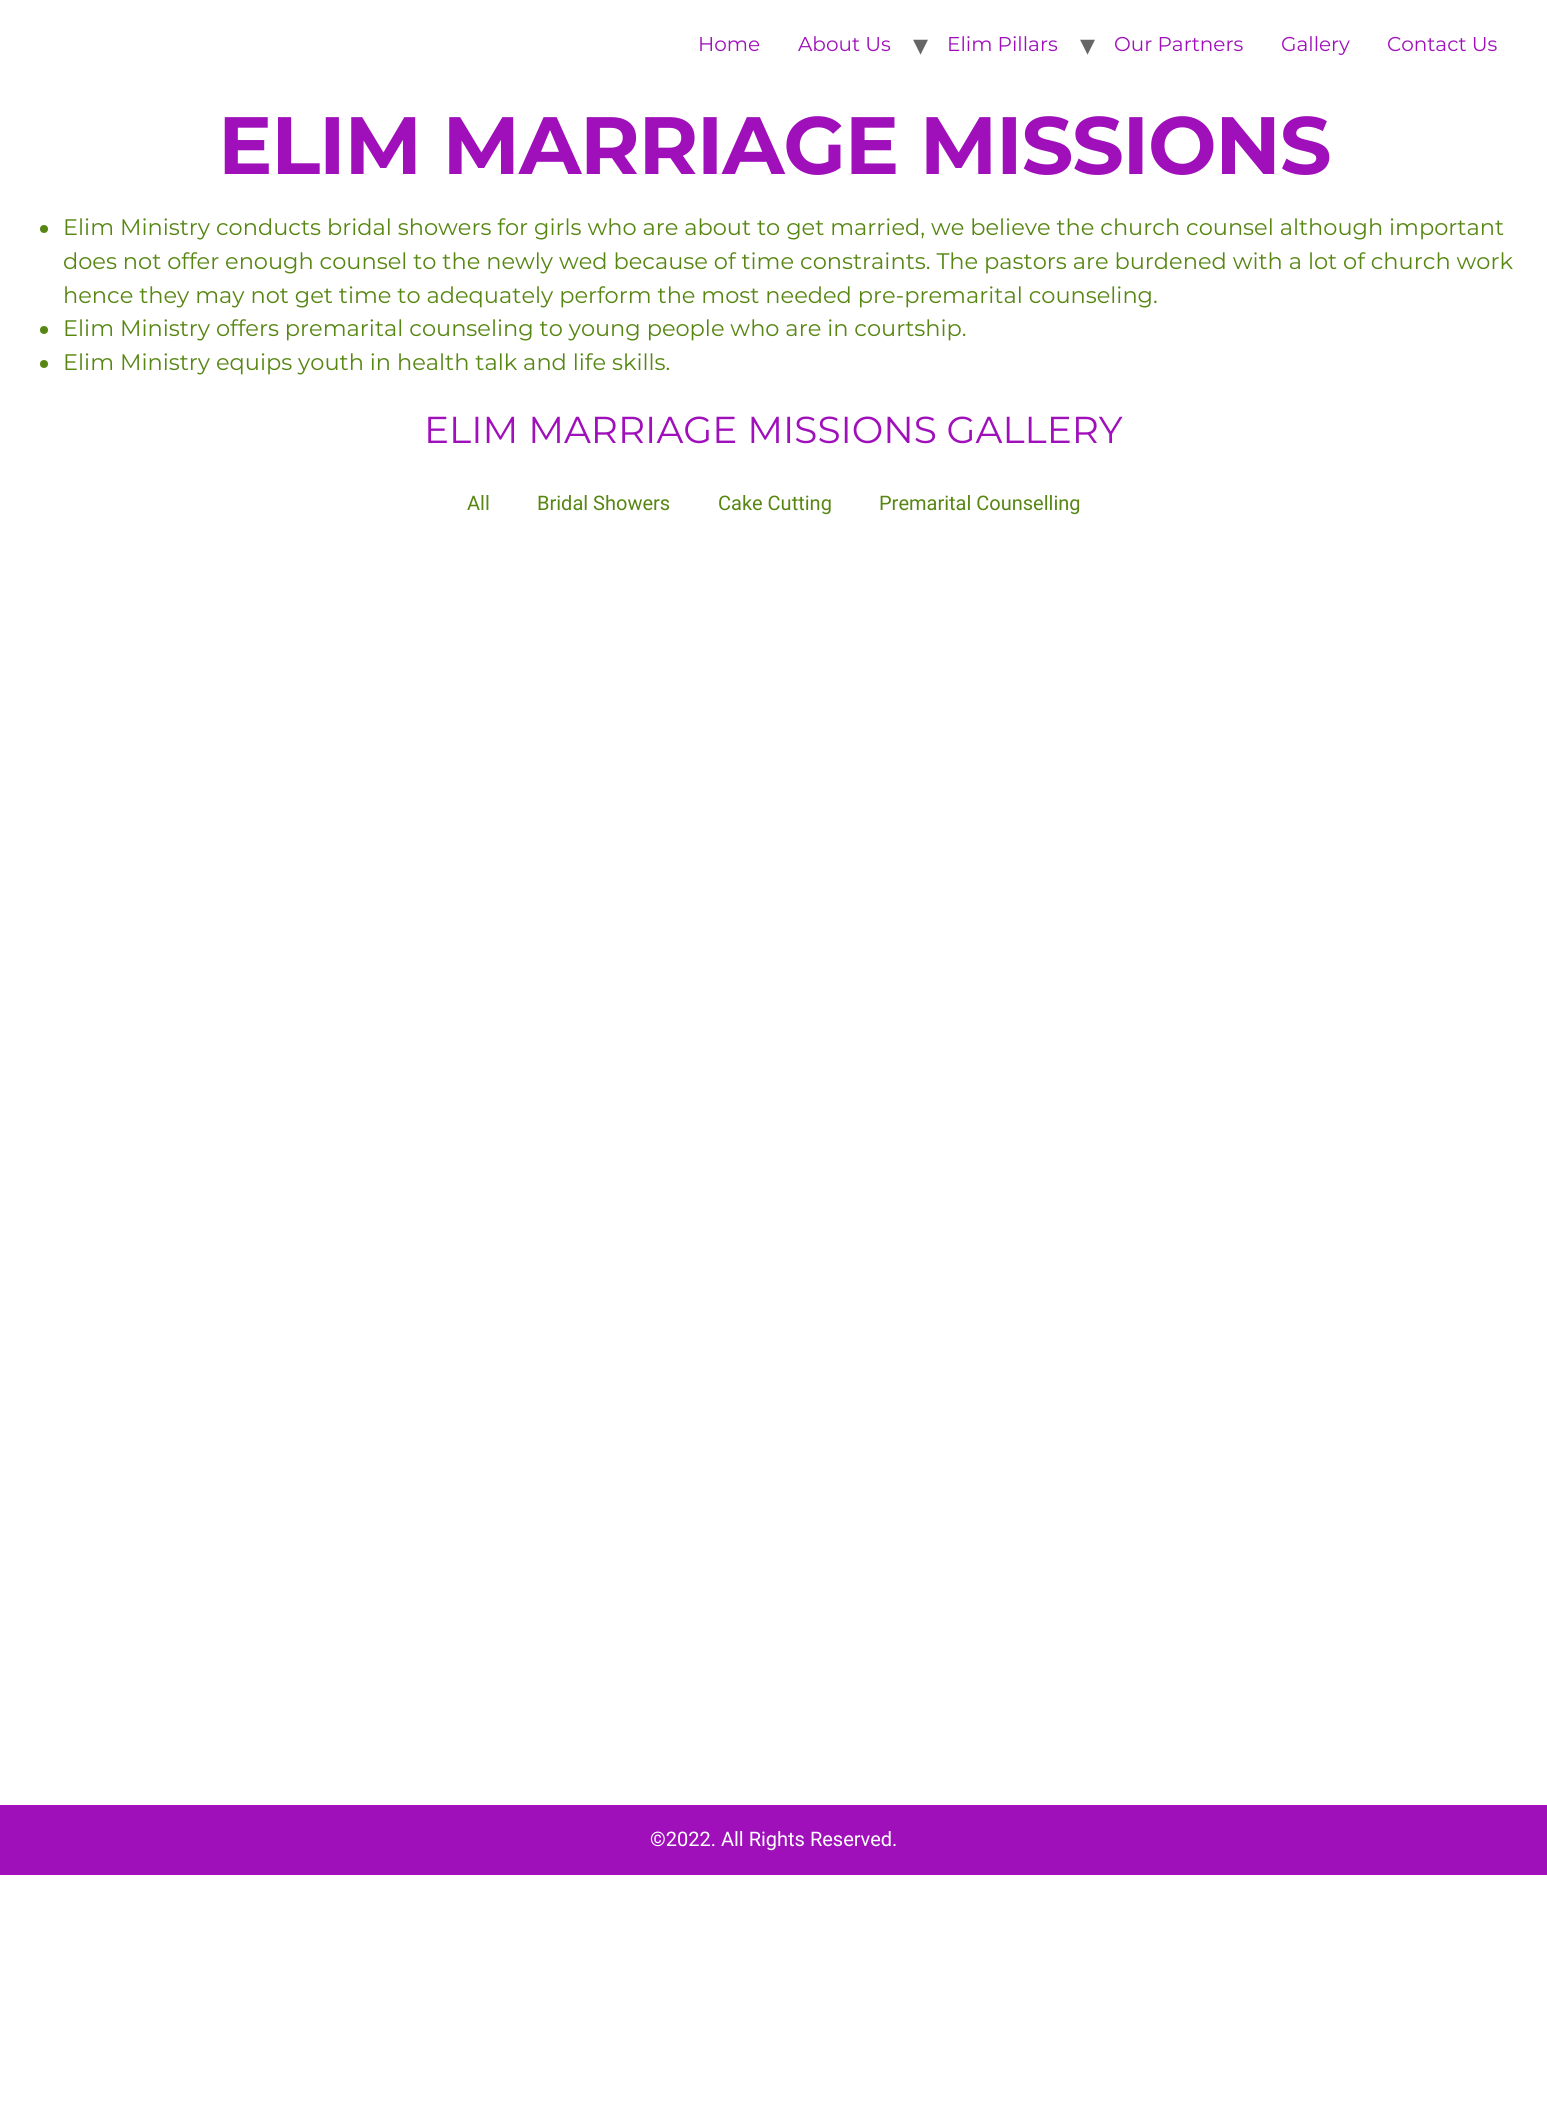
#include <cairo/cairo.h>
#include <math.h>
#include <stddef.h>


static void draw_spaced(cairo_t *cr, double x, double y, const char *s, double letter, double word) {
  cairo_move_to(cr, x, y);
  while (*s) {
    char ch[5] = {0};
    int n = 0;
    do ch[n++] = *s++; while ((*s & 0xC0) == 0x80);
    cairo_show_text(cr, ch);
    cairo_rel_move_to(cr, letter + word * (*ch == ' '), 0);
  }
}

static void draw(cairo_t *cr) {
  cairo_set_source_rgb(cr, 1, 1, 1);
  cairo_paint(cr);
  cairo_set_source_rgb(cr, 87 / 255.0, 134 / 255.0, 19 / 255.0);
  cairo_arc(cr, 44, 229, 4, 0, 2 * M_PI);
  cairo_fill(cr);
  cairo_arc(cr, 44, 330, 4, 0, 2 * M_PI);
  cairo_fill(cr);
  cairo_arc(cr, 44, 364, 4, 0, 2 * M_PI);
  cairo_fill(cr);
  cairo_set_source_rgb(cr, 159 / 255.0, 16 / 255.0, 186 / 255.0);
  cairo_rectangle(cr, 0, 1805, 1547, 70);
  cairo_fill(cr);
  cairo_select_font_face(cr, "Montserrat", CAIRO_FONT_SLANT_NORMAL, CAIRO_FONT_WEIGHT_NORMAL);
  cairo_set_font_size(cr, 20);
  cairo_move_to(cr, 698, 51);
  cairo_show_text(cr, "Home");
  cairo_move_to(cr, 798, 51);
  cairo_show_text(cr, "About Us");
  cairo_select_font_face(cr, "DejaVu Sans", CAIRO_FONT_SLANT_NORMAL, CAIRO_FONT_WEIGHT_NORMAL);
  cairo_set_font_size(cr, 30);
  cairo_set_source_rgb(cr, 102 / 255.0, 102 / 255.0, 102 / 255.0);
  cairo_move_to(cr, 913, 55);
  cairo_show_text(cr, "▾");
  cairo_select_font_face(cr, "Montserrat", CAIRO_FONT_SLANT_NORMAL, CAIRO_FONT_WEIGHT_NORMAL);
  cairo_set_font_size(cr, 20);
  cairo_set_source_rgb(cr, 159 / 255.0, 16 / 255.0, 186 / 255.0);
  cairo_move_to(cr, 947, 51);
  cairo_show_text(cr, "Elim Pillars");
  cairo_select_font_face(cr, "DejaVu Sans", CAIRO_FONT_SLANT_NORMAL, CAIRO_FONT_WEIGHT_NORMAL);
  cairo_set_font_size(cr, 30);
  cairo_set_source_rgb(cr, 102 / 255.0, 102 / 255.0, 102 / 255.0);
  cairo_move_to(cr, 1080, 55);
  cairo_show_text(cr, "▾");
  cairo_select_font_face(cr, "Montserrat", CAIRO_FONT_SLANT_NORMAL, CAIRO_FONT_WEIGHT_NORMAL);
  cairo_set_font_size(cr, 20);
  cairo_set_source_rgb(cr, 159 / 255.0, 16 / 255.0, 186 / 255.0);
  cairo_move_to(cr, 1114, 51);
  cairo_show_text(cr, "Our Partners");
  cairo_move_to(cr, 1281, 51);
  cairo_show_text(cr, "Gallery");
  cairo_move_to(cr, 1387, 51);
  cairo_show_text(cr, "Contact Us");
  cairo_select_font_face(cr, "Montserrat", CAIRO_FONT_SLANT_NORMAL, CAIRO_FONT_WEIGHT_BOLD);
  cairo_set_font_size(cr, 81.25);
  draw_spaced(cr, 218, 174, "ELIM MARRIAGE MISSIONS", -1.25, 0);
  cairo_select_font_face(cr, "Montserrat", CAIRO_FONT_SLANT_NORMAL, CAIRO_FONT_WEIGHT_NORMAL);
  cairo_set_font_size(cr, 22.5);
  cairo_set_source_rgb(cr, 87 / 255.0, 134 / 255.0, 19 / 255.0);
  cairo_move_to(cr, 63, 235);
  cairo_show_text(cr, "Elim Ministry conducts bridal showers for girls who are about to get married, we believe the church counsel although important");
  cairo_move_to(cr, 63, 269);
  cairo_show_text(cr, "does not offer enough counsel to the newly wed because of time constraints. The pastors are burdened with a lot of church work");
  cairo_move_to(cr, 63, 303);
  cairo_show_text(cr, "hence they may not get time to adequately perform the most needed pre-premarital counseling.");
  cairo_move_to(cr, 63, 336);
  cairo_show_text(cr, "Elim Ministry offers premarital counseling to young people who are in courtship.");
  cairo_move_to(cr, 63, 370);
  cairo_show_text(cr, "Elim Ministry equips youth in health talk and life skills.");
  cairo_set_font_size(cr, 37.5);
  cairo_set_source_rgb(cr, 159 / 255.0, 16 / 255.0, 186 / 255.0);
  cairo_move_to(cr, 424, 443);
  cairo_show_text(cr, "ELIM MARRIAGE MISSIONS GALLERY");
  cairo_select_font_face(cr, "Roboto", CAIRO_FONT_SLANT_NORMAL, CAIRO_FONT_WEIGHT_NORMAL);
  cairo_set_font_size(cr, 20);
  cairo_set_source_rgb(cr, 87 / 255.0, 134 / 255.0, 19 / 255.0);
  cairo_move_to(cr, 467, 510);
  cairo_show_text(cr, "All");
  cairo_move_to(cr, 537, 510);
  cairo_show_text(cr, "Bridal Showers");
  cairo_move_to(cr, 718, 510);
  cairo_show_text(cr, "Cake Cutting");
  cairo_move_to(cr, 879, 510);
  cairo_show_text(cr, "Premarital Counselling");
  cairo_set_source_rgb(cr, 1, 1, 1);
  cairo_move_to(cr, 650, 1846);
  cairo_show_text(cr, "©2022. All Rights Reserved.");
}

int main(void) {
  cairo_surface_t *surface = cairo_image_surface_create(CAIRO_FORMAT_RGB24, 1547, 2114);
  cairo_t *cr = cairo_create(surface);
  cairo_font_options_t *options = cairo_font_options_create();
  cairo_font_options_set_hint_metrics(options, CAIRO_HINT_METRICS_OFF);
  cairo_font_options_set_hint_style(options, CAIRO_HINT_STYLE_NONE);
  cairo_set_font_options(cr, options);
  cairo_set_miter_limit(cr, 4);
  draw(cr);
  cairo_surface_write_to_png(surface, "out.png");
  cairo_font_options_destroy(options);
  cairo_destroy(cr);
  cairo_surface_destroy(surface);
  return 0;
}
